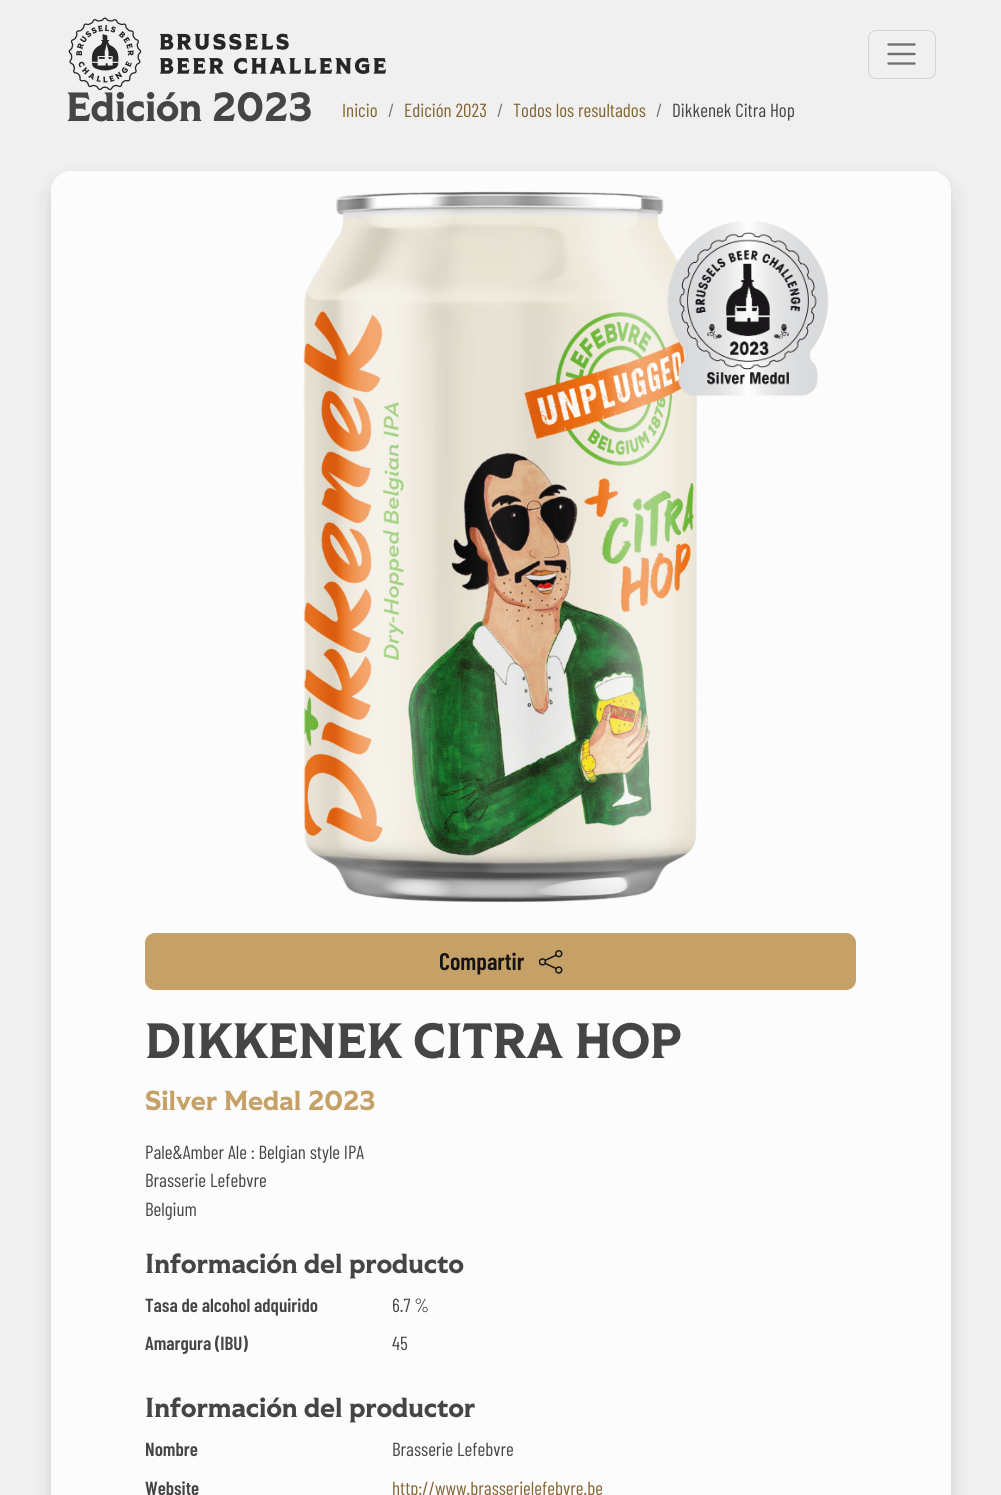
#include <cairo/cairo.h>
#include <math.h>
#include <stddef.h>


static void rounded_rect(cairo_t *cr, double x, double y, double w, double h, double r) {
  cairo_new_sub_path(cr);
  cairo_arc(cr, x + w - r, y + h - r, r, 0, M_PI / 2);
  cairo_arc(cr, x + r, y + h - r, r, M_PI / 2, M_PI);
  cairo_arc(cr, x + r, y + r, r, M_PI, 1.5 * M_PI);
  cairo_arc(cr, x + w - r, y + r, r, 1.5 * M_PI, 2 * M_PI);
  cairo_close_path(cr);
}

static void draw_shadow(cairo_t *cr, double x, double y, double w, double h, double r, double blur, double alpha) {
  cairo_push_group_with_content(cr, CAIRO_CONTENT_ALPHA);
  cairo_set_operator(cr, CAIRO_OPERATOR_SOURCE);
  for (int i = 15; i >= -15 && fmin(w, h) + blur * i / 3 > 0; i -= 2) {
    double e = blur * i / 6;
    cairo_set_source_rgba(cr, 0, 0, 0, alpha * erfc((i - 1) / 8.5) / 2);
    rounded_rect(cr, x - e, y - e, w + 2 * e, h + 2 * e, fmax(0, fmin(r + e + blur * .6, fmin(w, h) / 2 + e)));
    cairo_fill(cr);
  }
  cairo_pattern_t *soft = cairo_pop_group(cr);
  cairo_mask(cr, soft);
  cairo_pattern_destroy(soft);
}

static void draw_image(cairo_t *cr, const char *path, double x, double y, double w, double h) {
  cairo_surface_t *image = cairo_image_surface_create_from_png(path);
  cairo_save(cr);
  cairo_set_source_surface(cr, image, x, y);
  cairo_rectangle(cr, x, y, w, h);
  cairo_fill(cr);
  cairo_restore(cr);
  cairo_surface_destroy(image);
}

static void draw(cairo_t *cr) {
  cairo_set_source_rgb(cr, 240 / 255.0, 240 / 255.0, 240 / 255.0);
  cairo_paint(cr);
  draw_image(cr, "images/1.png", 68, 17, 318, 74);
  rounded_rect(cr, 868.5, 30.5, 67, 48, 7.5);
  cairo_set_source_rgb(cr, 210 / 255.0, 210 / 255.0, 210 / 255.0);
  cairo_set_line_width(cr, 1);
  cairo_stroke(cr);
  cairo_new_path(cr);
  cairo_move_to(cr, 888.5, 44.5);
  cairo_line_to(cr, 914.5, 44.5);
  cairo_move_to(cr, 888.5, 54);
  cairo_line_to(cr, 914.5, 54);
  cairo_move_to(cr, 888.5, 63.5);
  cairo_line_to(cr, 914.5, 63.5);
  cairo_set_source_rgb(cr, 112 / 255.0, 112 / 255.0, 112 / 255.0);
  cairo_set_line_width(cr, 2.4);
  cairo_set_line_cap(cr, CAIRO_LINE_CAP_ROUND);
  cairo_stroke(cr);
  cairo_set_source_rgb(cr, 20 / 255.0, 20 / 255.0, 20 / 255.0);
  draw_shadow(cr, 51, 181, 900, 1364, 20, 10, 0.15);
  cairo_set_source_rgb(cr, 252 / 255.0, 252 / 255.0, 252 / 255.0);
  rounded_rect(cr, 51, 171, 900, 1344, 20);
  cairo_fill(cr);
  draw_image(cr, "images/2.png", 303, 191, 394, 712);
  draw_image(cr, "images/3.png", 667, 221, 162, 175);
  cairo_set_source_rgb(cr, 197 / 255.0, 161 / 255.0, 103 / 255.0);
  rounded_rect(cr, 145.5, 933.5, 710, 56, 9.5);
  cairo_fill_preserve(cr);
  cairo_set_line_width(cr, 1);
  cairo_set_line_cap(cr, CAIRO_LINE_CAP_BUTT);
  cairo_stroke(cr);
  draw_image(cr, "images/4.png", 539, 950, 24, 24);
  cairo_select_font_face(cr, "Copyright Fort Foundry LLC", CAIRO_FONT_SLANT_NORMAL, CAIRO_FONT_WEIGHT_BOLD);
  cairo_set_font_size(cr, 40.75);
  cairo_set_source_rgb(cr, 69 / 255.0, 69 / 255.0, 69 / 255.0);
  cairo_move_to(cr, 66, 121);
  cairo_show_text(cr, "Edición 2023");
  cairo_select_font_face(cr, "Barlow Condensed", CAIRO_FONT_SLANT_NORMAL, CAIRO_FONT_WEIGHT_NORMAL);
  cairo_set_font_size(cr, 19);
  cairo_set_source_rgb(cr, 132 / 255.0, 100 / 255.0, 50 / 255.0);
  cairo_move_to(cr, 342, 117);
  cairo_show_text(cr, "Inicio");
  cairo_set_source_rgb(cr, 122 / 255.0, 122 / 255.0, 122 / 255.0);
  cairo_move_to(cr, 388, 117);
  cairo_show_text(cr, "/");
  cairo_set_source_rgb(cr, 132 / 255.0, 100 / 255.0, 50 / 255.0);
  cairo_move_to(cr, 404, 117);
  cairo_show_text(cr, "Edición 2023");
  cairo_set_source_rgb(cr, 122 / 255.0, 122 / 255.0, 122 / 255.0);
  cairo_move_to(cr, 497, 117);
  cairo_show_text(cr, "/");
  cairo_set_source_rgb(cr, 132 / 255.0, 100 / 255.0, 50 / 255.0);
  cairo_move_to(cr, 513, 117);
  cairo_show_text(cr, "Todos los resultados");
  cairo_set_source_rgb(cr, 122 / 255.0, 122 / 255.0, 122 / 255.0);
  cairo_move_to(cr, 656, 117);
  cairo_show_text(cr, "/");
  cairo_set_source_rgb(cr, 69 / 255.0, 69 / 255.0, 69 / 255.0);
  cairo_move_to(cr, 672, 117);
  cairo_show_text(cr, "Dikkenek Citra Hop");
  cairo_select_font_face(cr, "Barlow Condensed SemiBold", CAIRO_FONT_SLANT_NORMAL, CAIRO_FONT_WEIGHT_NORMAL);
  cairo_set_font_size(cr, 24);
  cairo_set_source_rgb(cr, 20 / 255.0, 20 / 255.0, 20 / 255.0);
  cairo_move_to(cr, 439, 970);
  cairo_show_text(cr, "Compartir");
  cairo_select_font_face(cr, "Copyright Fort Foundry LLC", CAIRO_FONT_SLANT_NORMAL, CAIRO_FONT_WEIGHT_BOLD);
  cairo_set_font_size(cr, 49.5);
  cairo_set_source_rgb(cr, 69 / 255.0, 69 / 255.0, 69 / 255.0);
  cairo_move_to(cr, 145, 1058);
  cairo_show_text(cr, "DIKKENEK CITRA HOP");
  cairo_set_font_size(cr, 27.5);
  cairo_set_source_rgb(cr, 197 / 255.0, 161 / 255.0, 103 / 255.0);
  cairo_move_to(cr, 145, 1110);
  cairo_show_text(cr, "Silver Medal 2023");
  cairo_select_font_face(cr, "Barlow Condensed", CAIRO_FONT_SLANT_NORMAL, CAIRO_FONT_WEIGHT_NORMAL);
  cairo_set_font_size(cr, 19);
  cairo_set_source_rgb(cr, 69 / 255.0, 69 / 255.0, 69 / 255.0);
  cairo_move_to(cr, 145, 1159);
  cairo_show_text(cr, "Pale&Amber Ale : Belgian style IPA");
  cairo_move_to(cr, 145, 1187);
  cairo_show_text(cr, "Brasserie Lefebvre");
  cairo_move_to(cr, 145, 1216);
  cairo_show_text(cr, "Belgium");
  cairo_select_font_face(cr, "Copyright Fort Foundry LLC", CAIRO_FONT_SLANT_NORMAL, CAIRO_FONT_WEIGHT_BOLD);
  cairo_set_font_size(cr, 27.5);
  cairo_move_to(cr, 145, 1273);
  cairo_show_text(cr, "Información del producto");
  cairo_select_font_face(cr, "Barlow Condensed SemiBold", CAIRO_FONT_SLANT_NORMAL, CAIRO_FONT_WEIGHT_NORMAL);
  cairo_set_font_size(cr, 19);
  cairo_move_to(cr, 145, 1312);
  cairo_show_text(cr, "Tasa de alcohol adquirido");
  cairo_select_font_face(cr, "Barlow Condensed", CAIRO_FONT_SLANT_NORMAL, CAIRO_FONT_WEIGHT_NORMAL);
  cairo_move_to(cr, 392, 1312);
  cairo_show_text(cr, "6.7 %");
  cairo_select_font_face(cr, "Barlow Condensed SemiBold", CAIRO_FONT_SLANT_NORMAL, CAIRO_FONT_WEIGHT_NORMAL);
  cairo_move_to(cr, 145, 1350);
  cairo_show_text(cr, "Amargura (IBU)");
  cairo_select_font_face(cr, "Barlow Condensed", CAIRO_FONT_SLANT_NORMAL, CAIRO_FONT_WEIGHT_NORMAL);
  cairo_move_to(cr, 392, 1350);
  cairo_show_text(cr, "45");
  cairo_select_font_face(cr, "Copyright Fort Foundry LLC", CAIRO_FONT_SLANT_NORMAL, CAIRO_FONT_WEIGHT_BOLD);
  cairo_set_font_size(cr, 27.5);
  cairo_move_to(cr, 145, 1417);
  cairo_show_text(cr, "Información del productor");
  cairo_select_font_face(cr, "Barlow Condensed SemiBold", CAIRO_FONT_SLANT_NORMAL, CAIRO_FONT_WEIGHT_NORMAL);
  cairo_set_font_size(cr, 19);
  cairo_move_to(cr, 145, 1456);
  cairo_show_text(cr, "Nombre");
  cairo_select_font_face(cr, "Barlow Condensed", CAIRO_FONT_SLANT_NORMAL, CAIRO_FONT_WEIGHT_NORMAL);
  cairo_move_to(cr, 392, 1456);
  cairo_show_text(cr, "Brasserie Lefebvre");
  cairo_select_font_face(cr, "Barlow Condensed SemiBold", CAIRO_FONT_SLANT_NORMAL, CAIRO_FONT_WEIGHT_NORMAL);
  cairo_move_to(cr, 145, 1495);
  cairo_show_text(cr, "Website");
  cairo_select_font_face(cr, "Barlow Condensed", CAIRO_FONT_SLANT_NORMAL, CAIRO_FONT_WEIGHT_NORMAL);
  cairo_set_source_rgb(cr, 132 / 255.0, 100 / 255.0, 50 / 255.0);
  cairo_move_to(cr, 392, 1495);
  cairo_show_text(cr, "http://www.brasserielefebvre.be");
}

int main(void) {
  cairo_surface_t *surface = cairo_image_surface_create(CAIRO_FORMAT_RGB24, 1001, 1495);
  cairo_t *cr = cairo_create(surface);
  cairo_font_options_t *options = cairo_font_options_create();
  cairo_font_options_set_hint_metrics(options, CAIRO_HINT_METRICS_OFF);
  cairo_font_options_set_hint_style(options, CAIRO_HINT_STYLE_NONE);
  cairo_set_font_options(cr, options);
  cairo_set_miter_limit(cr, 4);
  draw(cr);
  cairo_surface_write_to_png(surface, "out.png");
  cairo_font_options_destroy(options);
  cairo_destroy(cr);
  cairo_surface_destroy(surface);
  return 0;
}
